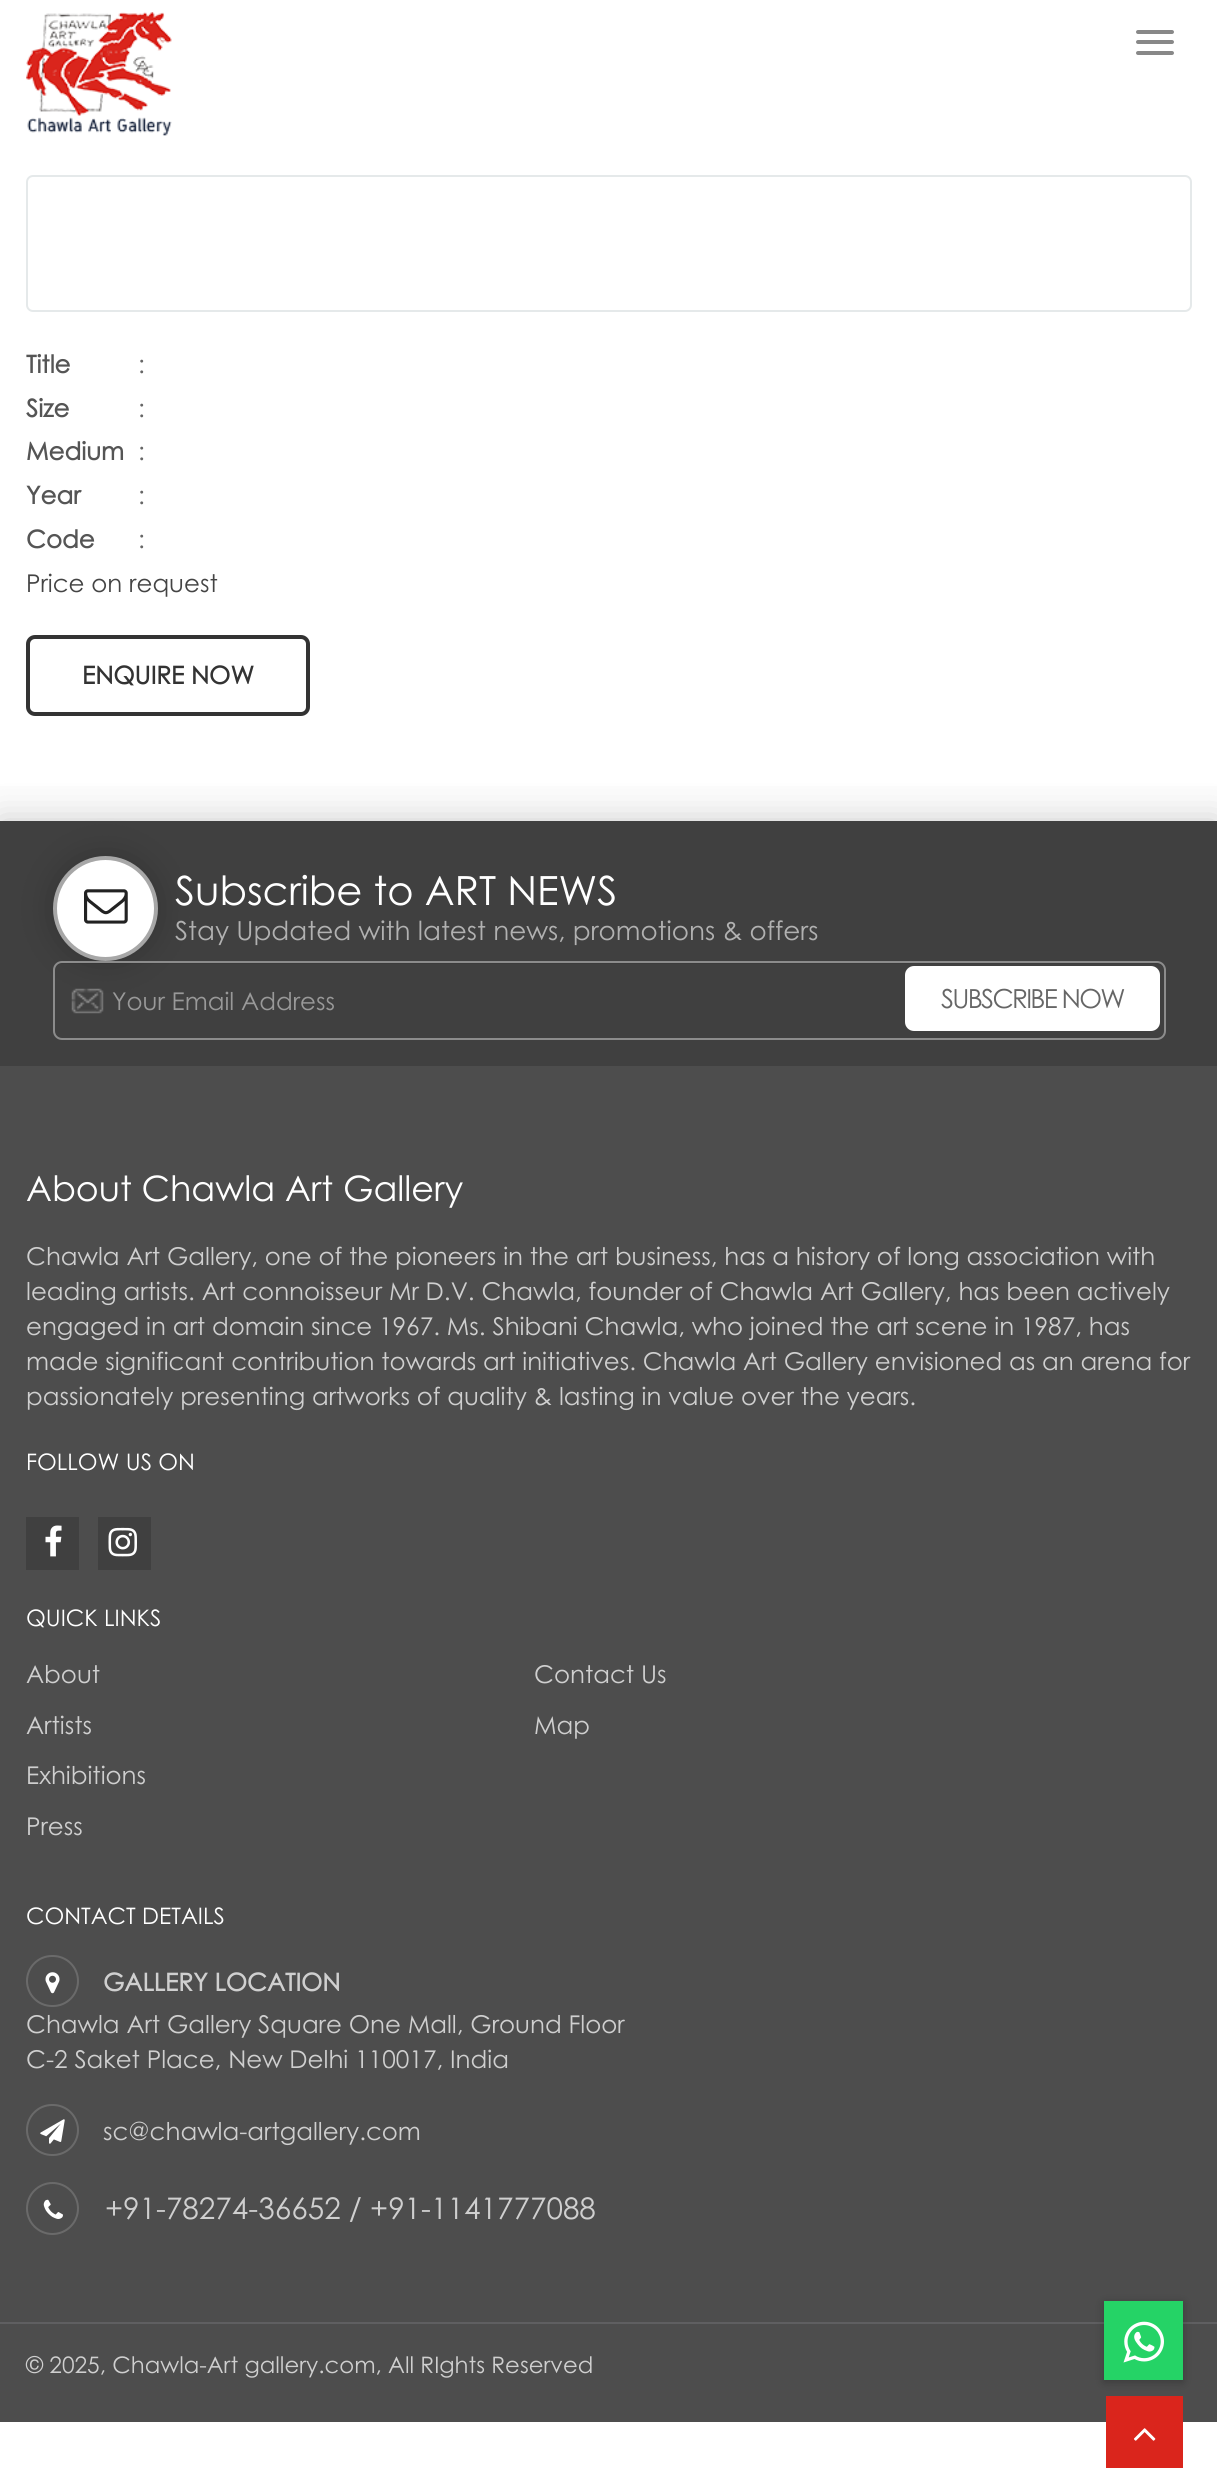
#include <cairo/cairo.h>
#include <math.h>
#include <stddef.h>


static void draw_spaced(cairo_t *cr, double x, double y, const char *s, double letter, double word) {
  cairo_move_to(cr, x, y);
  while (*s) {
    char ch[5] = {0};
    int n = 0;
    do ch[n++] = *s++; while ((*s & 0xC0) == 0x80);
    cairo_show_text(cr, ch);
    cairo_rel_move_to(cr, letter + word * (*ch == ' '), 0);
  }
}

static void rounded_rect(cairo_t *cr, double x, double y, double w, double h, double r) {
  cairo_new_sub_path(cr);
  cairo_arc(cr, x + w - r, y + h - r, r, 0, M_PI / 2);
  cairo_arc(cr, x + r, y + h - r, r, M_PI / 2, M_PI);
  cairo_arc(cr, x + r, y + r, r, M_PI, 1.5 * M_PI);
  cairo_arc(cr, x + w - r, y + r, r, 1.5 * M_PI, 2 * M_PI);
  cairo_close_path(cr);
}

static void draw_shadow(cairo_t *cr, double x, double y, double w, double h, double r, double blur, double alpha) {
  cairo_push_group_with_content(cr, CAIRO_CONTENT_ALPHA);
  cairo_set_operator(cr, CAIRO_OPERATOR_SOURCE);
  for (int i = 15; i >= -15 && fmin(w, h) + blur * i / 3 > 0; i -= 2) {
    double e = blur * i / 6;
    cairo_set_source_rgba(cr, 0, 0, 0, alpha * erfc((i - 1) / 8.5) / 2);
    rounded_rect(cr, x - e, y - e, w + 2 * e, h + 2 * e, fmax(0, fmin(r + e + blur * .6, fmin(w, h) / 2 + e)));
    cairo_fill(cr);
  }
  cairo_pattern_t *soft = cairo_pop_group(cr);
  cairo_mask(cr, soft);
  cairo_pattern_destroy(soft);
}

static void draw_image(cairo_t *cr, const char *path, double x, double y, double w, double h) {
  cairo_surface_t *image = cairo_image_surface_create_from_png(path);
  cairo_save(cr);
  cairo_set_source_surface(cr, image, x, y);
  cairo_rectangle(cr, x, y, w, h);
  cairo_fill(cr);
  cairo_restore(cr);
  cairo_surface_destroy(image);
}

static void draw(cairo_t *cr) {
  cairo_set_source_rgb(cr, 1, 1, 1);
  cairo_paint(cr);
  draw_image(cr, "images/1.png", 26, 12, 146, 124);
  cairo_set_source_rgb(cr, 136 / 255.0, 136 / 255.0, 136 / 255.0);
  rounded_rect(cr, 1136, 30, 38, 4, 2);
  cairo_fill(cr);
  rounded_rect(cr, 1136, 40, 38, 4, 2);
  cairo_fill(cr);
  rounded_rect(cr, 1136, 51, 38, 4, 2);
  cairo_fill(cr);
  rounded_rect(cr, 27, 176, 1164, 135, 6);
  cairo_set_source_rgb(cr, 229 / 255.0, 233 / 255.0, 234 / 255.0);
  cairo_stroke(cr);
  rounded_rect(cr, 28, 637, 280, 77, 7);
  cairo_set_source_rgb(cr, 51 / 255.0, 51 / 255.0, 51 / 255.0);
  cairo_set_line_width(cr, 4);
  cairo_stroke(cr);
  cairo_set_source_rgb(cr, 252 / 255.0, 252 / 255.0, 252 / 255.0);
  cairo_rectangle(cr, 0, 786, 1217, 35);
  cairo_fill(cr);
  cairo_set_source_rgb(cr, 0, 0, 0);
  draw_shadow(cr, 0, 821, 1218, 245, 0, 17.5, 0.2);
  cairo_set_source_rgb(cr, 64 / 255.0, 64 / 255.0, 64 / 255.0);
  cairo_rectangle(cr, 0, 821, 1217, 245);
  cairo_fill(cr);
  cairo_set_source_rgb(cr, 0, 0, 0);
  draw_shadow(cr, 53, 856, 105, 105, 52.5, 17.5, 0.2);
  cairo_set_source_rgb(cr, 1, 1, 1);
  cairo_arc(cr, 105.5, 908.5, 50.5, 0, 2 * M_PI);
  cairo_fill_preserve(cr);
  cairo_set_source_rgb(cr, 167 / 255.0, 167 / 255.0, 167 / 255.0);
  cairo_stroke(cr);
  draw_image(cr, "images/2.png", 84, 889, 44, 35);
  draw_image(cr, "images/3.png", 71, 988, 33, 26);
  cairo_set_source_rgba(cr, 0, 0, 0, 0.07);
  cairo_new_path(cr);
  cairo_move_to(cr, 61, 964);
  cairo_line_to(cr, 1157, 964);
  cairo_curve_to(cr, 1161, 964, 1164, 967, 1164, 971);
  cairo_line_to(cr, 1164, 970);
  cairo_curve_to(cr, 1164, 966, 1161, 963, 1157, 963);
  cairo_line_to(cr, 61, 963);
  cairo_curve_to(cr, 57, 963, 54, 966, 54, 970);
  cairo_line_to(cr, 54, 971);
  cairo_curve_to(cr, 54, 967, 57, 964, 61, 964);
  cairo_close_path(cr);
  cairo_fill(cr);
  rounded_rect(cr, 54, 962, 1111, 77, 8);
  cairo_set_source_rgb(cr, 140 / 255.0, 140 / 255.0, 140 / 255.0);
  cairo_set_line_width(cr, 2);
  cairo_stroke(cr);
  cairo_set_source_rgb(cr, 1, 1, 1);
  rounded_rect(cr, 905, 966, 255, 65, 9);
  cairo_fill(cr);
  cairo_set_source_rgb(cr, 77 / 255.0, 77 / 255.0, 77 / 255.0);
  cairo_rectangle(cr, 0, 1066, 1217, 1256);
  cairo_fill(cr);
  cairo_set_source_rgb(cr, 64 / 255.0, 64 / 255.0, 64 / 255.0);
  cairo_rectangle(cr, 26, 1517, 53, 53);
  cairo_fill(cr);
  draw_image(cr, "images/4.png", 45, 1525, 17, 32);
  cairo_rectangle(cr, 98, 1517, 53, 53);
  cairo_fill(cr);
  draw_image(cr, "images/5.png", 108, 1527, 29, 30);
  rounded_rect(cr, 27, 1956, 51, 50, 25);
  cairo_set_source_rgb(cr, 106 / 255.0, 106 / 255.0, 106 / 255.0);
  cairo_stroke(cr);
  draw_image(cr, "images/6.png", 45, 1972, 15, 22);
  rounded_rect(cr, 27, 2105, 51, 50, 25);
  cairo_stroke(cr);
  draw_image(cr, "images/7.png", 40, 2119, 25, 25);
  cairo_arc(cr, 52.5, 2208.5, 25.5, 0, 2 * M_PI);
  cairo_stroke(cr);
  draw_image(cr, "images/8.png", 43, 2199, 20, 20);
  cairo_set_source_rgb(cr, 77 / 255.0, 77 / 255.0, 77 / 255.0);
  cairo_rectangle(cr, 0, 2324, 1217, 98);
  cairo_fill(cr);
  cairo_set_source_rgb(cr, 95 / 255.0, 95 / 255.0, 97 / 255.0);
  cairo_rectangle(cr, 0, 2322, 1217, 2);
  cairo_fill(cr);
  cairo_set_source_rgb(cr, 218 / 255.0, 37 / 255.0, 28 / 255.0);
  cairo_rectangle(cr, 1106, 2396, 77, 72);
  cairo_fill(cr);
  cairo_set_source_rgb(cr, 0, 0, 0);
  draw_shadow(cr, 1104, 2303, 79, 79, 0, 4.5, 0.25);
  cairo_set_source_rgb(cr, 37 / 255.0, 211 / 255.0, 102 / 255.0);
  cairo_rectangle(cr, 1104, 2301, 79, 79);
  cairo_fill(cr);
  draw_image(cr, "images/9.png", 1123, 2321, 41, 42);
  draw_image(cr, "images/10.png", 1134, 2428, 22, 13);
  cairo_select_font_face(cr, "Century Gothic", CAIRO_FONT_SLANT_NORMAL, CAIRO_FONT_WEIGHT_BOLD);
  cairo_set_font_size(cr, 24.5);
  cairo_set_source_rgb(cr, 85 / 255.0, 85 / 255.0, 85 / 255.0);
  cairo_move_to(cr, 26, 373);
  cairo_show_text(cr, "Title");
  cairo_select_font_face(cr, "Century Gothic", CAIRO_FONT_SLANT_NORMAL, CAIRO_FONT_WEIGHT_NORMAL);
  cairo_set_source_rgb(cr, 102 / 255.0, 102 / 255.0, 102 / 255.0);
  cairo_move_to(cr, 138, 373);
  cairo_show_text(cr, ":");
  cairo_select_font_face(cr, "Century Gothic", CAIRO_FONT_SLANT_NORMAL, CAIRO_FONT_WEIGHT_BOLD);
  cairo_set_source_rgb(cr, 85 / 255.0, 85 / 255.0, 85 / 255.0);
  cairo_move_to(cr, 26, 417);
  cairo_show_text(cr, "Size");
  cairo_select_font_face(cr, "Century Gothic", CAIRO_FONT_SLANT_NORMAL, CAIRO_FONT_WEIGHT_NORMAL);
  cairo_set_source_rgb(cr, 102 / 255.0, 102 / 255.0, 102 / 255.0);
  cairo_move_to(cr, 138, 417);
  cairo_show_text(cr, ":");
  cairo_select_font_face(cr, "Century Gothic", CAIRO_FONT_SLANT_NORMAL, CAIRO_FONT_WEIGHT_BOLD);
  cairo_set_source_rgb(cr, 85 / 255.0, 85 / 255.0, 85 / 255.0);
  cairo_move_to(cr, 26, 460);
  cairo_show_text(cr, "Medium");
  cairo_select_font_face(cr, "Century Gothic", CAIRO_FONT_SLANT_NORMAL, CAIRO_FONT_WEIGHT_NORMAL);
  cairo_set_source_rgb(cr, 102 / 255.0, 102 / 255.0, 102 / 255.0);
  cairo_move_to(cr, 138, 460);
  cairo_show_text(cr, ":");
  cairo_select_font_face(cr, "Century Gothic", CAIRO_FONT_SLANT_NORMAL, CAIRO_FONT_WEIGHT_BOLD);
  cairo_set_source_rgb(cr, 85 / 255.0, 85 / 255.0, 85 / 255.0);
  cairo_move_to(cr, 26, 504);
  cairo_show_text(cr, "Year");
  cairo_select_font_face(cr, "Century Gothic", CAIRO_FONT_SLANT_NORMAL, CAIRO_FONT_WEIGHT_NORMAL);
  cairo_set_source_rgb(cr, 102 / 255.0, 102 / 255.0, 102 / 255.0);
  cairo_move_to(cr, 138, 504);
  cairo_show_text(cr, ":");
  cairo_select_font_face(cr, "Century Gothic", CAIRO_FONT_SLANT_NORMAL, CAIRO_FONT_WEIGHT_BOLD);
  cairo_set_source_rgb(cr, 85 / 255.0, 85 / 255.0, 85 / 255.0);
  cairo_move_to(cr, 26, 548);
  cairo_show_text(cr, "Code");
  cairo_select_font_face(cr, "Century Gothic", CAIRO_FONT_SLANT_NORMAL, CAIRO_FONT_WEIGHT_NORMAL);
  cairo_set_source_rgb(cr, 102 / 255.0, 102 / 255.0, 102 / 255.0);
  cairo_move_to(cr, 138, 548);
  cairo_show_text(cr, ":");
  cairo_set_source_rgb(cr, 68 / 255.0, 68 / 255.0, 68 / 255.0);
  cairo_move_to(cr, 26, 592);
  cairo_show_text(cr, "Price on request");
  cairo_select_font_face(cr, "Century Gothic", CAIRO_FONT_SLANT_NORMAL, CAIRO_FONT_WEIGHT_BOLD);
  cairo_set_source_rgb(cr, 51 / 255.0, 51 / 255.0, 51 / 255.0);
  cairo_move_to(cr, 82, 684);
  cairo_show_text(cr, "ENQUIRE NOW");
  cairo_select_font_face(cr, "Century Gothic", CAIRO_FONT_SLANT_NORMAL, CAIRO_FONT_WEIGHT_NORMAL);
  cairo_set_font_size(cr, 40.25);
  cairo_set_source_rgb(cr, 1, 1, 1);
  cairo_move_to(cr, 175, 905);
  cairo_show_text(cr, "Subscribe to ART NEWS");
  cairo_set_font_size(cr, 26.25);
  cairo_set_source_rgb(cr, 177 / 255.0, 177 / 255.0, 177 / 255.0);
  cairo_move_to(cr, 175, 940);
  cairo_show_text(cr, "Stay Updated with latest news, promotions & offers");
  cairo_set_font_size(cr, 24.5);
  cairo_set_source_rgb(cr, 153 / 255.0, 153 / 255.0, 153 / 255.0);
  cairo_move_to(cr, 112, 1010);
  cairo_show_text(cr, "Your Email Address");
  cairo_set_font_size(cr, 26.25);
  cairo_set_source_rgb(cr, 102 / 255.0, 102 / 255.0, 102 / 255.0);
  draw_spaced(cr, 941, 1008, "SUBSCRIBE NOW", -1.75, 0);
  cairo_set_font_size(cr, 35);
  cairo_set_source_rgb(cr, 1, 1, 1);
  cairo_move_to(cr, 26, 1201);
  cairo_show_text(cr, "About Chawla Art Gallery");
  cairo_set_font_size(cr, 24.5);
  cairo_set_source_rgb(cr, 207 / 255.0, 207 / 255.0, 207 / 255.0);
  cairo_move_to(cr, 26, 1265);
  cairo_show_text(cr, "Chawla Art Gallery, one of the pioneers in the art business, has a history of long association with");
  cairo_move_to(cr, 26, 1300);
  cairo_show_text(cr, "leading artists. Art connoisseur Mr D.V. Chawla, founder of Chawla Art Gallery, has been actively");
  cairo_move_to(cr, 26, 1335);
  cairo_show_text(cr, "engaged in art domain since 1967. Ms. Shibani Chawla, who joined the art scene in 1987, has");
  cairo_move_to(cr, 26, 1370);
  cairo_show_text(cr, "made significant contribution towards art initiatives. Chawla Art Gallery envisioned as an arena for");
  cairo_move_to(cr, 26, 1405);
  cairo_show_text(cr, "passionately presenting artworks of quality & lasting in value over the years.");
  cairo_set_font_size(cr, 22.75);
  cairo_set_source_rgb(cr, 1, 1, 1);
  cairo_move_to(cr, 26, 1470);
  cairo_show_text(cr, "FOLLOW US ON");
  cairo_move_to(cr, 26, 1626);
  cairo_show_text(cr, "QUICK LINKS");
  cairo_set_font_size(cr, 24.5);
  cairo_set_source_rgb(cr, 207 / 255.0, 207 / 255.0, 207 / 255.0);
  cairo_move_to(cr, 26, 1683);
  cairo_show_text(cr, "About");
  cairo_move_to(cr, 26, 1734);
  cairo_show_text(cr, "Artists");
  cairo_move_to(cr, 26, 1784);
  cairo_show_text(cr, "Exhibitions");
  cairo_move_to(cr, 26, 1835);
  cairo_show_text(cr, "Press");
  cairo_move_to(cr, 534, 1683);
  cairo_show_text(cr, "Contact Us");
  cairo_move_to(cr, 534, 1734);
  cairo_show_text(cr, "Map");
  cairo_set_font_size(cr, 22.75);
  cairo_set_source_rgb(cr, 1, 1, 1);
  cairo_move_to(cr, 26, 1924);
  cairo_show_text(cr, "CONTACT DETAILS");
  cairo_select_font_face(cr, "Century Gothic", CAIRO_FONT_SLANT_NORMAL, CAIRO_FONT_WEIGHT_BOLD);
  cairo_set_font_size(cr, 24.5);
  cairo_set_source_rgb(cr, 207 / 255.0, 207 / 255.0, 207 / 255.0);
  cairo_move_to(cr, 103, 1991);
  cairo_show_text(cr, "GALLERY LOCATION");
  cairo_select_font_face(cr, "Century Gothic", CAIRO_FONT_SLANT_NORMAL, CAIRO_FONT_WEIGHT_NORMAL);
  cairo_move_to(cr, 26, 2033);
  cairo_show_text(cr, "Chawla Art Gallery Square One Mall, Ground Floor");
  cairo_move_to(cr, 26, 2068);
  cairo_show_text(cr, "C-2 Saket Place, New Delhi 110017, India");
  cairo_move_to(cr, 103, 2140);
  cairo_show_text(cr, "sc@chawla-artgallery.com");
  cairo_set_font_size(cr, 29.75);
  cairo_move_to(cr, 105, 2219);
  cairo_show_text(cr, "+91-78274-36652 / +91-1141777088");
  cairo_set_font_size(cr, 22.75);
  cairo_move_to(cr, 26, 2373);
  cairo_show_text(cr, "© 2025, Chawla-Art gallery.com, All RIghts Reserved");
}

int main(void) {
  cairo_surface_t *surface = cairo_image_surface_create(CAIRO_FORMAT_RGB24, 1217, 2484);
  cairo_t *cr = cairo_create(surface);
  cairo_font_options_t *options = cairo_font_options_create();
  cairo_font_options_set_hint_metrics(options, CAIRO_HINT_METRICS_OFF);
  cairo_font_options_set_hint_style(options, CAIRO_HINT_STYLE_NONE);
  cairo_set_font_options(cr, options);
  cairo_set_miter_limit(cr, 4);
  draw(cr);
  cairo_surface_write_to_png(surface, "out.png");
  cairo_font_options_destroy(options);
  cairo_destroy(cr);
  cairo_surface_destroy(surface);
  return 0;
}
